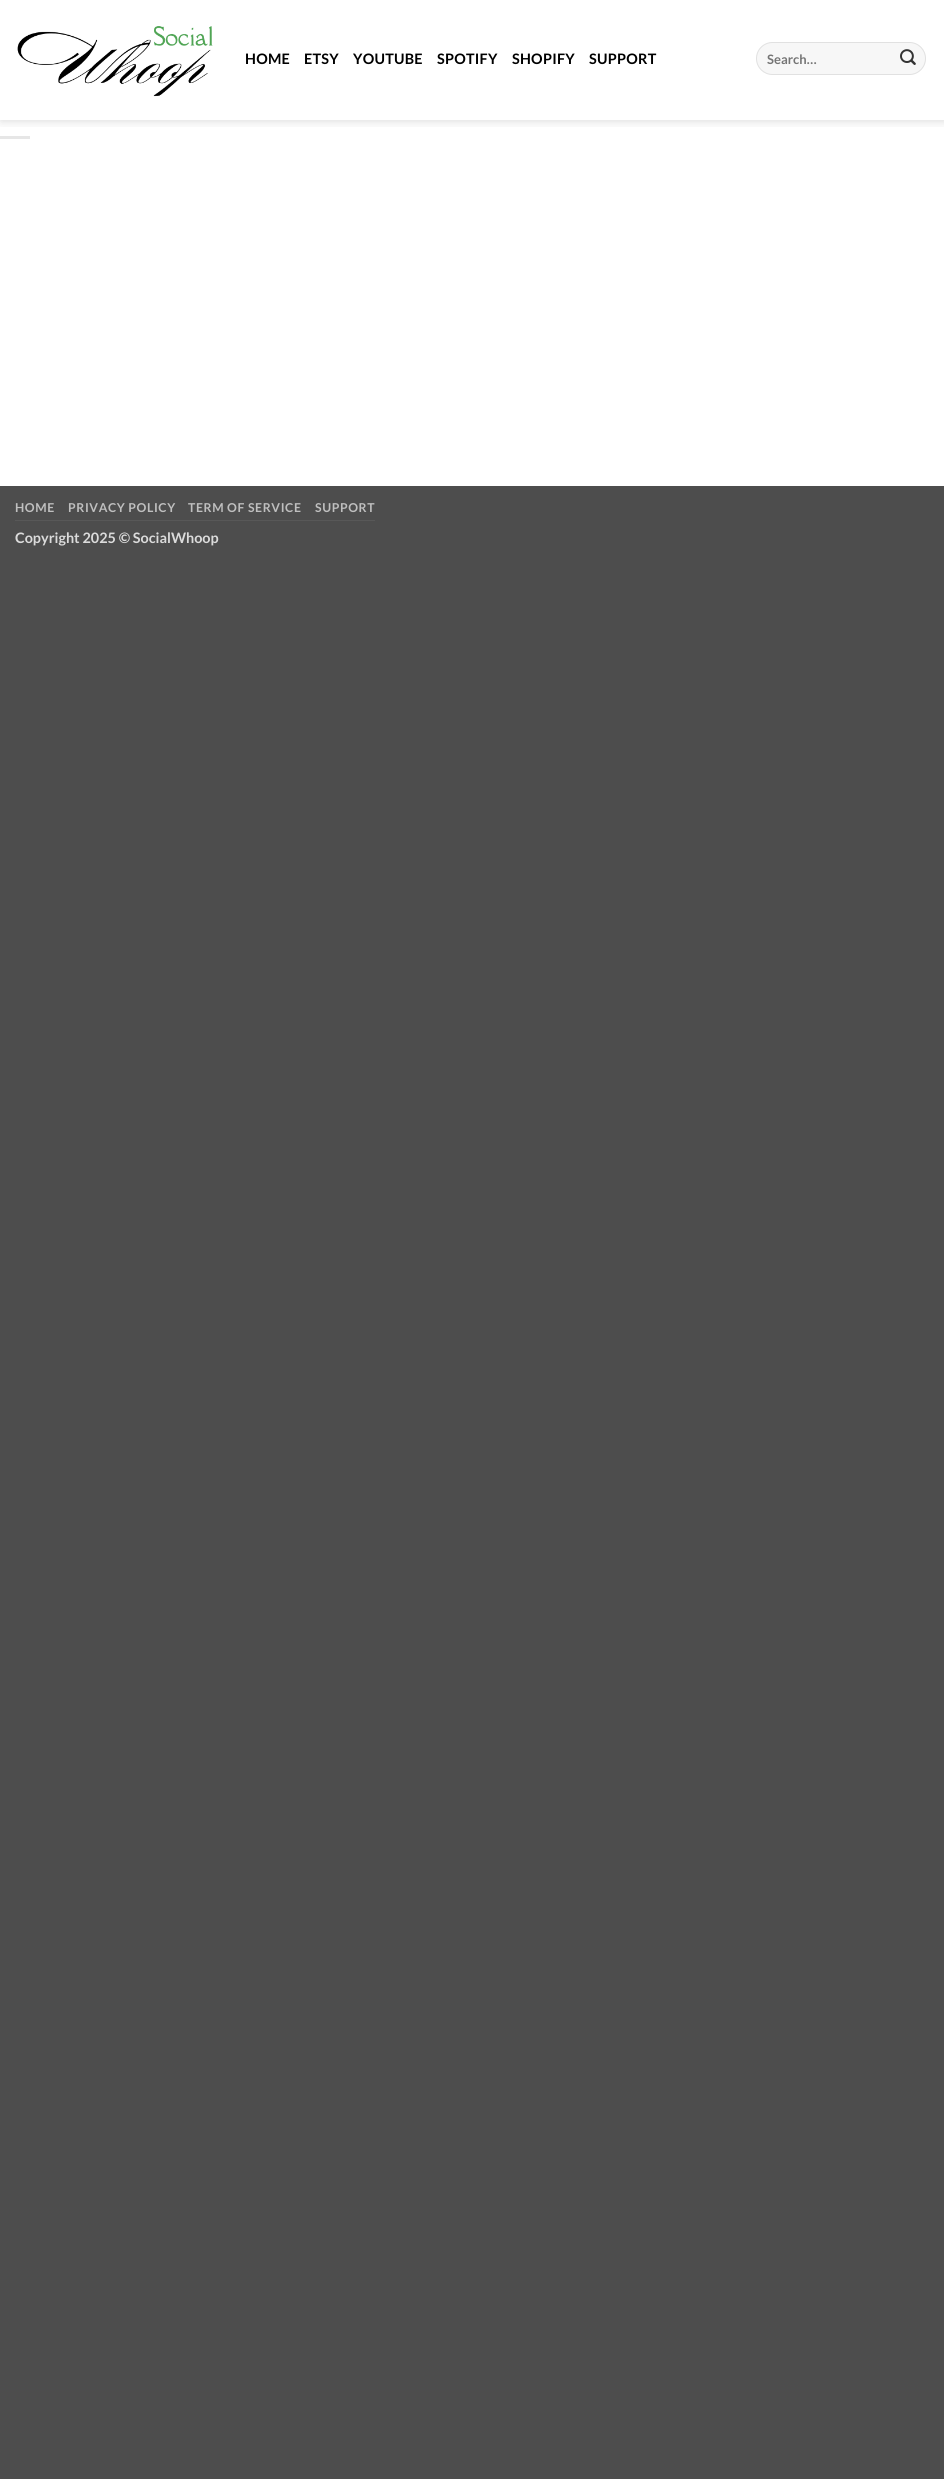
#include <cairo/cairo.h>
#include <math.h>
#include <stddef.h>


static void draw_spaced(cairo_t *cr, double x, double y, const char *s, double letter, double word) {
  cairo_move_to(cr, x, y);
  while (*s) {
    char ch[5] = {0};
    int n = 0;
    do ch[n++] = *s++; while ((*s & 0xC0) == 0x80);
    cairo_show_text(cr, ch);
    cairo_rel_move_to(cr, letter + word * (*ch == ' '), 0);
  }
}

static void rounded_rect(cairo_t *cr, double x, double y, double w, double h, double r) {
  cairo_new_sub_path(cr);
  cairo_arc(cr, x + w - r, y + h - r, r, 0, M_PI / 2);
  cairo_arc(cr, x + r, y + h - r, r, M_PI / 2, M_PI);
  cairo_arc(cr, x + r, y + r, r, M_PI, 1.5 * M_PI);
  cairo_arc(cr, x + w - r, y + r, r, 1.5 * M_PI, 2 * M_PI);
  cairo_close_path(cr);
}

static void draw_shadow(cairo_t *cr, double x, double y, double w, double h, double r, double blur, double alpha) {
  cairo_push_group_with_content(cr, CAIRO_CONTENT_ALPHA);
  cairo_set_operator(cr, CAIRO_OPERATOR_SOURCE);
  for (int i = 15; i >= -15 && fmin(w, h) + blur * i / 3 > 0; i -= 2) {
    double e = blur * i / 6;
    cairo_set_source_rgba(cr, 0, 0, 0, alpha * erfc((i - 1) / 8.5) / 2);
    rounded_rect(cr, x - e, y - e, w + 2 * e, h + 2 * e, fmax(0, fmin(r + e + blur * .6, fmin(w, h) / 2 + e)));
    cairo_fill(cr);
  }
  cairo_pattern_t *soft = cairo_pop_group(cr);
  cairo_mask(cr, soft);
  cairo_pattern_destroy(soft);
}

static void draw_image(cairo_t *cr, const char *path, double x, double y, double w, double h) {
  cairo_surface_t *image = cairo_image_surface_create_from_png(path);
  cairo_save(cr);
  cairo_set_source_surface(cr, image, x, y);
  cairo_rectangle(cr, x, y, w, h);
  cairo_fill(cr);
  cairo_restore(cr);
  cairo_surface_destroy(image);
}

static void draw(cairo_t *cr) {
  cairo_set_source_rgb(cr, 77 / 255.0, 77 / 255.0, 77 / 255.0);
  cairo_paint(cr);
  cairo_set_source_rgb(cr, 1, 1, 1);
  cairo_rectangle(cr, 0, 0, 944, 486);
  cairo_fill(cr);
  cairo_set_source_rgb(cr, 230 / 255.0, 230 / 255.0, 230 / 255.0);
  cairo_rectangle(cr, 0, 136, 30, 3);
  cairo_fill(cr);
  cairo_save(cr);
  cairo_rectangle(cr, 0, 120, 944, 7);
  cairo_clip(cr);
  cairo_set_source_rgb(cr, 0, 0, 0);
  draw_shadow(cr, 1, 1, 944, 120, 0, 5, 0.15);
  cairo_restore(cr);
  draw_image(cr, "images/1.png", 17, 26, 196, 71);
  cairo_set_source_rgb(cr, 247 / 255.0, 247 / 255.0, 247 / 255.0);
  rounded_rect(cr, 756, 42, 170, 33, 16.5);
  cairo_fill(cr);
  rounded_rect(cr, 756.5, 42.5, 169, 32, 16);
  cairo_set_source_rgba(cr, 0, 0, 0, 0.09);
  cairo_set_line_width(cr, 1);
  cairo_stroke(cr);
  draw_image(cr, "images/2.png", 900, 49, 16, 16);
  cairo_set_source_rgb(cr, 88 / 255.0, 88 / 255.0, 88 / 255.0);
  cairo_rectangle(cr, 15, 520, 360, 1);
  cairo_fill(cr);
  cairo_select_font_face(cr, "Lato", CAIRO_FONT_SLANT_NORMAL, CAIRO_FONT_WEIGHT_BOLD);
  cairo_set_font_size(cr, 14.4);
  cairo_set_source_rgb(cr, 0, 0, 0);
  draw_spaced(cr, 245, 64, "HOME", 0.25, 0);
  draw_spaced(cr, 304, 64, "ETSY", 0.25, 0);
  draw_spaced(cr, 353, 64, "YOUTUBE", 0.25, 0);
  draw_spaced(cr, 437, 64, "SPOTIFY", 0.25, 0);
  draw_spaced(cr, 512, 64, "SHOPIFY", 0.25, 0);
  draw_spaced(cr, 589, 64, "SUPPORT", 0.25, 0);
  cairo_set_font_size(cr, 13);
  cairo_set_source_rgb(cr, 117 / 255.0, 117 / 255.0, 117 / 255.0);
  cairo_move_to(cr, 767, 64);
  cairo_show_text(cr, "Search…");
  cairo_set_font_size(cr, 12.25);
  cairo_set_source_rgb(cr, 191 / 255.0, 191 / 255.0, 191 / 255.0);
  draw_spaced(cr, 15, 512, "HOME", 0.6, 0);
  draw_spaced(cr, 68, 512, "PRIVACY POLICY", 0.6, 0);
  draw_spaced(cr, 188, 512, "TERM OF SERVICE", 0.6, 0);
  draw_spaced(cr, 315, 512, "SUPPORT", 0.6, 0);
  cairo_set_font_size(cr, 14.4);
  cairo_set_source_rgb(cr, 219 / 255.0, 219 / 255.0, 219 / 255.0);
  cairo_move_to(cr, 15, 543);
  cairo_show_text(cr, "Copyright 2025 © SocialWhoop");
}

int main(void) {
  cairo_surface_t *surface = cairo_image_surface_create(CAIRO_FORMAT_RGB24, 944, 2479);
  cairo_t *cr = cairo_create(surface);
  cairo_font_options_t *options = cairo_font_options_create();
  cairo_font_options_set_hint_metrics(options, CAIRO_HINT_METRICS_OFF);
  cairo_font_options_set_hint_style(options, CAIRO_HINT_STYLE_NONE);
  cairo_set_font_options(cr, options);
  cairo_set_miter_limit(cr, 4);
  draw(cr);
  cairo_surface_write_to_png(surface, "out.png");
  cairo_font_options_destroy(options);
  cairo_destroy(cr);
  cairo_surface_destroy(surface);
  return 0;
}
